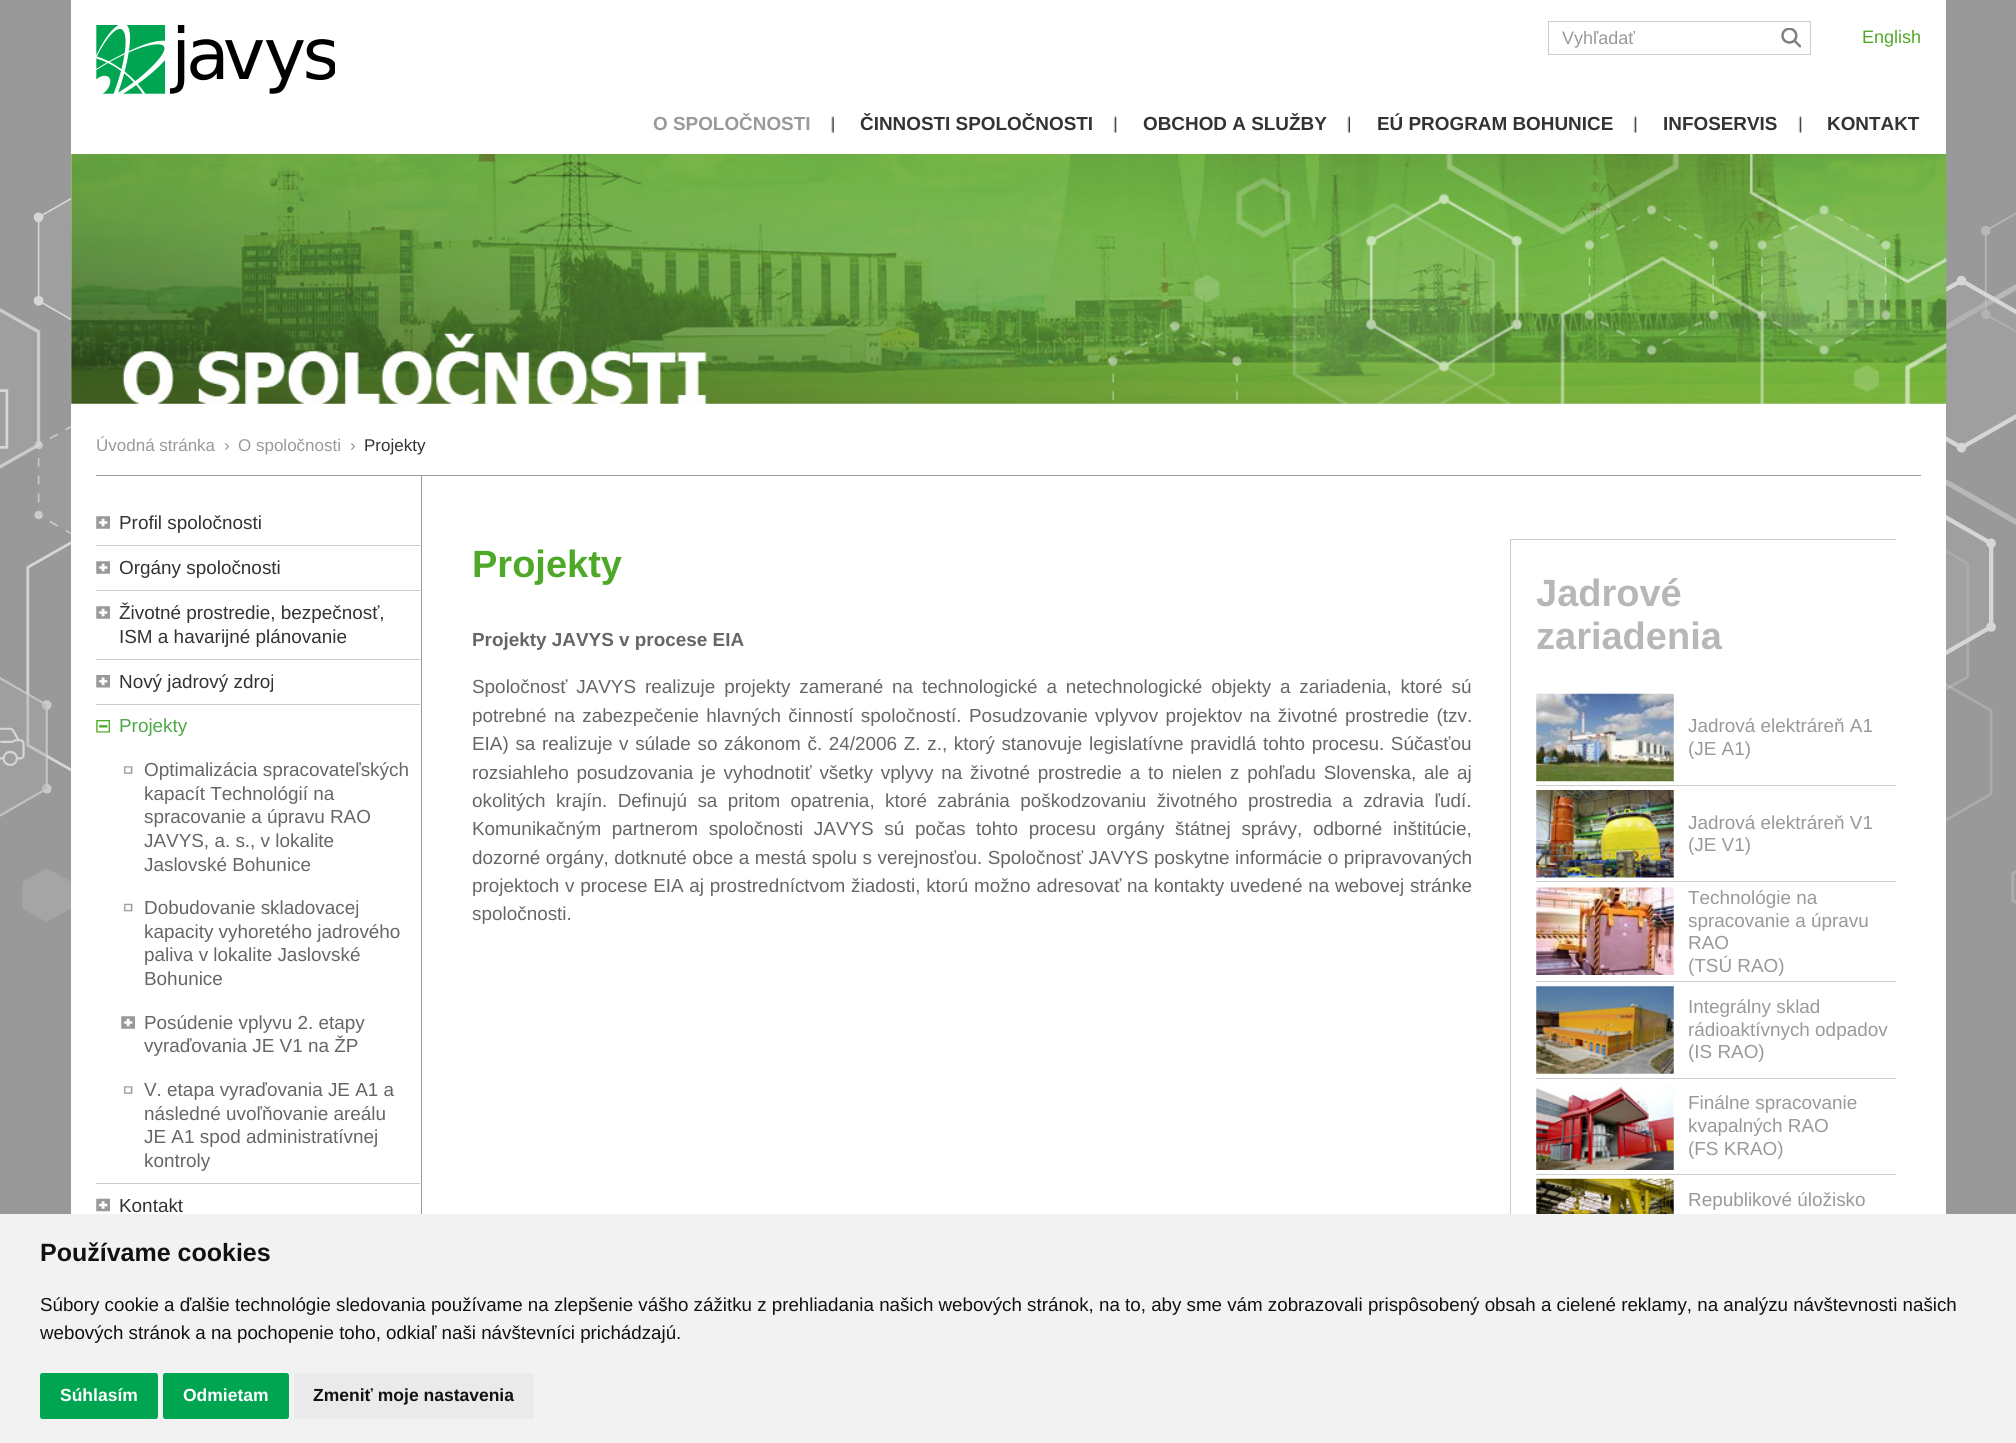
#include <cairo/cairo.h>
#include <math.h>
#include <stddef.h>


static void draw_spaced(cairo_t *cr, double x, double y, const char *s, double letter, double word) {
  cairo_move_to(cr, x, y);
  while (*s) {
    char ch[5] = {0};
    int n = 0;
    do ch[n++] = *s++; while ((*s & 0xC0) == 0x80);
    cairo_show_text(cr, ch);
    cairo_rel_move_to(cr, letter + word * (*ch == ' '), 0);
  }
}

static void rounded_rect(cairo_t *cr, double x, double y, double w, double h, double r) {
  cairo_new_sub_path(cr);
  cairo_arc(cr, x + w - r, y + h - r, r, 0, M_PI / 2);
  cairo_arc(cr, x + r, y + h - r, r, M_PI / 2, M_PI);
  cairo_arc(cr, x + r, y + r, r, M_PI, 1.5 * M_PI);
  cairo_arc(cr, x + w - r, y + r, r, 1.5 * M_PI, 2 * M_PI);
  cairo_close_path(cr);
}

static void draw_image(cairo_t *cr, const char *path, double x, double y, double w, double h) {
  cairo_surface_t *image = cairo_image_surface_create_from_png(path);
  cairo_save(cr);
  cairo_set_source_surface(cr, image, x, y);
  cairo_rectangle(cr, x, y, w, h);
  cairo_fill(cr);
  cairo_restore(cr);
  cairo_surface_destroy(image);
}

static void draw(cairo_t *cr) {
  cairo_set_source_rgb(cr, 153 / 255.0, 153 / 255.0, 153 / 255.0);
  cairo_paint(cr);
  draw_image(cr, "images/1.png", 0, 197, 2016, 725);
  cairo_set_source_rgb(cr, 1, 1, 1);
  cairo_rectangle(cr, 71, 154, 1875, 1060);
  cairo_fill(cr);
  draw_image(cr, "images/7.png", 71, 153, 1876, 251);
  cairo_rectangle(cr, 71, 0, 1875, 154);
  cairo_fill(cr);
  draw_image(cr, "images/2.png", 96, 25, 239, 69);
  cairo_set_source_rgb(cr, 204 / 255.0, 204 / 255.0, 204 / 255.0);
  cairo_rectangle(cr, 1548, 21, 263, 1);
  cairo_fill(cr);
  cairo_rectangle(cr, 1548, 54, 225, 1);
  cairo_fill(cr);
  cairo_rectangle(cr, 1548, 21, 1, 34);
  cairo_fill(cr);
  cairo_rectangle(cr, 1810, 21, 1, 34);
  cairo_fill(cr);
  cairo_rectangle(cr, 1773, 54, 38, 1);
  cairo_fill(cr);
  draw_image(cr, "images/3.png", 1781, 28, 20, 20);
  draw_image(cr, "images/4.png", 831, 116, 3, 17);
  draw_image(cr, "images/5.png", 1113, 116, 4, 17);
  draw_image(cr, "images/6.png", 1347, 116, 3, 17);
  draw_image(cr, "images/5.png", 1633, 116, 4, 17);
  draw_image(cr, "images/5.png", 1798, 116, 4, 17);
  cairo_set_source_rgb(cr, 153 / 255.0, 153 / 255.0, 153 / 255.0);
  cairo_rectangle(cr, 96, 475, 1825, 1);
  cairo_fill(cr);
  cairo_rectangle(cr, 421, 476, 1, 738);
  cairo_fill(cr);
  cairo_set_source_rgb(cr, 204 / 255.0, 204 / 255.0, 204 / 255.0);
  cairo_rectangle(cr, 96, 545, 324, 1);
  cairo_fill(cr);
  draw_image(cr, "images/8.png", 96, 516, 14, 13);
  cairo_rectangle(cr, 96, 590, 324, 1);
  cairo_fill(cr);
  draw_image(cr, "images/8.png", 96, 561, 14, 13);
  cairo_rectangle(cr, 96, 659, 324, 1);
  cairo_fill(cr);
  draw_image(cr, "images/8.png", 96, 606, 14, 13);
  cairo_rectangle(cr, 96, 704, 324, 1);
  cairo_fill(cr);
  draw_image(cr, "images/9.png", 96, 675, 14, 13);
  cairo_rectangle(cr, 96, 1183, 324, 1);
  cairo_fill(cr);
  draw_image(cr, "images/10.png", 96, 720, 14, 13);
  draw_image(cr, "images/11.png", 123, 766, 10, 8);
  draw_image(cr, "images/12.png", 123, 903, 10, 9);
  draw_image(cr, "images/13.png", 121, 1016, 14, 13);
  draw_image(cr, "images/11.png", 123, 1086, 10, 8);
  draw_image(cr, "images/14.png", 96, 1198, 14, 14);
  cairo_rectangle(cr, 1510, 539, 386, 1);
  cairo_fill(cr);
  cairo_rectangle(cr, 1510, 539, 1, 675);
  cairo_fill(cr);
  cairo_rectangle(cr, 1536, 785, 360, 1);
  cairo_fill(cr);
  draw_image(cr, "images/15.png", 1536, 693, 138, 89);
  cairo_rectangle(cr, 1536, 881, 360, 1);
  cairo_fill(cr);
  draw_image(cr, "images/16.png", 1536, 790, 138, 88);
  cairo_rectangle(cr, 1536, 981, 360, 1);
  cairo_fill(cr);
  draw_image(cr, "images/17.png", 1536, 887, 138, 88);
  cairo_rectangle(cr, 1536, 1078, 360, 1);
  cairo_fill(cr);
  draw_image(cr, "images/18.png", 1536, 986, 138, 88);
  cairo_rectangle(cr, 1536, 1174, 360, 1);
  cairo_fill(cr);
  draw_image(cr, "images/19.png", 1536, 1082, 138, 88);
  draw_image(cr, "images/20.png", 1536, 1178, 138, 36);
  cairo_set_source_rgb(cr, 242 / 255.0, 242 / 255.0, 242 / 255.0);
  cairo_rectangle(cr, 0, 1214, 2016, 229);
  cairo_fill(cr);
  cairo_set_source_rgb(cr, 0, 165 / 255.0, 81 / 255.0);
  rounded_rect(cr, 40, 1373, 118, 46, 2.5);
  cairo_fill(cr);
  rounded_rect(cr, 163, 1373, 126, 46, 2.5);
  cairo_fill(cr);
  cairo_set_source_rgb(cr, 234 / 255.0, 234 / 255.0, 234 / 255.0);
  rounded_rect(cr, 294, 1373, 240, 46, 2.5);
  cairo_fill(cr);
  cairo_select_font_face(cr, "Liberation Sans", CAIRO_FONT_SLANT_NORMAL, CAIRO_FONT_WEIGHT_NORMAL);
  cairo_set_font_size(cr, 18);
  cairo_set_source_rgb(cr, 153 / 255.0, 153 / 255.0, 153 / 255.0);
  cairo_move_to(cr, 1562, 44);
  cairo_show_text(cr, "Vyhľadať");
  cairo_set_source_rgb(cr, 79 / 255.0, 169 / 255.0, 40 / 255.0);
  cairo_move_to(cr, 1862, 43);
  cairo_show_text(cr, "English");
  cairo_select_font_face(cr, "Liberation Sans", CAIRO_FONT_SLANT_NORMAL, CAIRO_FONT_WEIGHT_BOLD);
  cairo_set_font_size(cr, 18.9);
  cairo_set_source_rgb(cr, 153 / 255.0, 153 / 255.0, 153 / 255.0);
  cairo_move_to(cr, 653, 130);
  cairo_show_text(cr, "O SPOLOČNOSTI");
  cairo_set_source_rgb(cr, 51 / 255.0, 51 / 255.0, 51 / 255.0);
  cairo_move_to(cr, 860, 130);
  cairo_show_text(cr, "ČINNOSTI SPOLOČNOSTI");
  cairo_move_to(cr, 1143, 130);
  cairo_show_text(cr, "OBCHOD A SLUŽBY");
  cairo_move_to(cr, 1377, 130);
  cairo_show_text(cr, "EÚ PROGRAM BOHUNICE");
  cairo_move_to(cr, 1663, 130);
  cairo_show_text(cr, "INFOSERVIS");
  cairo_move_to(cr, 1827, 130);
  cairo_show_text(cr, "KONTAKT");
  cairo_select_font_face(cr, "Liberation Sans", CAIRO_FONT_SLANT_NORMAL, CAIRO_FONT_WEIGHT_NORMAL);
  cairo_set_font_size(cr, 17);
  cairo_set_source_rgb(cr, 153 / 255.0, 153 / 255.0, 153 / 255.0);
  cairo_move_to(cr, 96, 451);
  cairo_show_text(cr, "Úvodná stránka");
  cairo_move_to(cr, 224, 451);
  cairo_show_text(cr, "›");
  cairo_move_to(cr, 238, 451);
  cairo_show_text(cr, "O spoločnosti");
  cairo_move_to(cr, 350, 451);
  cairo_show_text(cr, "›");
  cairo_set_source_rgb(cr, 51 / 255.0, 51 / 255.0, 51 / 255.0);
  cairo_move_to(cr, 364, 451);
  cairo_show_text(cr, "Projekty");
  cairo_set_font_size(cr, 18.9);
  cairo_move_to(cr, 119, 529);
  cairo_show_text(cr, "Profil spoločnosti");
  cairo_move_to(cr, 119, 574);
  cairo_show_text(cr, "Orgány spoločnosti");
  cairo_move_to(cr, 119, 619);
  cairo_show_text(cr, "Životné prostredie, bezpečnosť,");
  cairo_move_to(cr, 119, 643);
  cairo_show_text(cr, "ISM a havarijné plánovanie");
  cairo_move_to(cr, 119, 688);
  cairo_show_text(cr, "Nový jadrový zdroj");
  cairo_set_source_rgb(cr, 77 / 255.0, 170 / 255.0, 70 / 255.0);
  cairo_move_to(cr, 119, 732);
  cairo_show_text(cr, "Projekty");
  cairo_set_source_rgb(cr, 102 / 255.0, 102 / 255.0, 102 / 255.0);
  cairo_move_to(cr, 144, 776);
  cairo_show_text(cr, "Optimalizácia spracovateľských");
  cairo_move_to(cr, 144, 800);
  cairo_show_text(cr, "kapacít Technológií na");
  cairo_move_to(cr, 144, 823);
  cairo_show_text(cr, "spracovanie a úpravu RAO");
  cairo_move_to(cr, 144, 847);
  cairo_show_text(cr, "JAVYS, a. s., v lokalite");
  cairo_move_to(cr, 144, 871);
  cairo_show_text(cr, "Jaslovské Bohunice");
  cairo_move_to(cr, 144, 914);
  cairo_show_text(cr, "Dobudovanie skladovacej");
  cairo_move_to(cr, 144, 938);
  cairo_show_text(cr, "kapacity vyhoretého jadrového");
  cairo_move_to(cr, 144, 961);
  cairo_show_text(cr, "paliva v lokalite Jaslovské");
  cairo_move_to(cr, 144, 985);
  cairo_show_text(cr, "Bohunice");
  cairo_move_to(cr, 144, 1029);
  cairo_show_text(cr, "Posúdenie vplyvu 2. etapy");
  cairo_move_to(cr, 144, 1052);
  cairo_show_text(cr, "vyraďovania JE V1 na ŽP");
  cairo_move_to(cr, 144, 1096);
  cairo_show_text(cr, "V. etapa vyraďovania JE A1 a");
  cairo_move_to(cr, 144, 1120);
  cairo_show_text(cr, "následné uvoľňovanie areálu");
  cairo_move_to(cr, 144, 1143);
  cairo_show_text(cr, "JE A1 spod administratívnej");
  cairo_move_to(cr, 144, 1167);
  cairo_show_text(cr, "kontroly");
  cairo_set_source_rgb(cr, 51 / 255.0, 51 / 255.0, 51 / 255.0);
  cairo_move_to(cr, 119, 1212);
  cairo_show_text(cr, "Kontakt");
  cairo_select_font_face(cr, "Liberation Sans", CAIRO_FONT_SLANT_NORMAL, CAIRO_FONT_WEIGHT_BOLD);
  cairo_set_font_size(cr, 38);
  cairo_set_source_rgb(cr, 79 / 255.0, 169 / 255.0, 40 / 255.0);
  cairo_move_to(cr, 472, 577);
  cairo_show_text(cr, "Projekty");
  cairo_set_font_size(cr, 18.9);
  cairo_set_source_rgb(cr, 102 / 255.0, 102 / 255.0, 102 / 255.0);
  cairo_move_to(cr, 472, 646);
  cairo_show_text(cr, "Projekty JAVYS v procese EIA");
  cairo_select_font_face(cr, "Liberation Sans", CAIRO_FONT_SLANT_NORMAL, CAIRO_FONT_WEIGHT_NORMAL);
  draw_spaced(cr, 472, 693, "Spoločnosť JAVYS realizuje projekty zamerané na technologické a netechnologické objekty a zariadenia, ktoré sú", 0, 3.6);
  draw_spaced(cr, 472, 722, "potrebné na zabezpečenie hlavných činností spoločností. Posudzovanie vplyvov projektov na životné prostredie (tzv.", 0, 2.1);
  draw_spaced(cr, 472, 750, "EIA) sa realizuje v súlade so zákonom č. 24/2006 Z. z., ktorý stanovuje legislatívne pravidlá tohto procesu. Súčasťou", 0, 1.4);
  draw_spaced(cr, 472, 779, "rozsiahleho posudzovania je vyhodnotiť všetky vplyvy na životné prostredie a to nielen z pohľadu Slovenska, ale aj", 0, 2.6);
  draw_spaced(cr, 472, 807, "okolitých krajín. Definujú sa pritom opatrenia, ktoré zabránia poškodzovaniu životného prostredia a zdravia ľudí.", 0, 5.1);
  draw_spaced(cr, 472, 835, "Komunikačným partnerom spoločnosti JAVYS sú počas tohto procesu orgány štátnej správy, odborné inštitúcie,", 0, 5.4);
  draw_spaced(cr, 472, 864, "dozorné orgány, dotknuté obce a mestá spolu s verejnosťou. Spoločnosť JAVYS poskytne informácie o pripravovaných", 0, 0.25);
  draw_spaced(cr, 472, 892, "projektoch v procese EIA aj prostredníctvom žiadosti, ktorú možno adresovať na kontakty uvedené na webovej stránke", 0, 0.5);
  cairo_move_to(cr, 472, 920);
  cairo_show_text(cr, "spoločnosti.");
  cairo_select_font_face(cr, "Liberation Sans", CAIRO_FONT_SLANT_NORMAL, CAIRO_FONT_WEIGHT_BOLD);
  cairo_set_font_size(cr, 38);
  cairo_set_source_rgb(cr, 183 / 255.0, 183 / 255.0, 183 / 255.0);
  cairo_move_to(cr, 1536, 606);
  cairo_show_text(cr, "Jadrové");
  cairo_move_to(cr, 1536, 649);
  cairo_show_text(cr, "zariadenia");
  cairo_select_font_face(cr, "Liberation Sans", CAIRO_FONT_SLANT_NORMAL, CAIRO_FONT_WEIGHT_NORMAL);
  cairo_set_font_size(cr, 18.9);
  cairo_set_source_rgb(cr, 153 / 255.0, 153 / 255.0, 153 / 255.0);
  cairo_move_to(cr, 1688, 732);
  cairo_show_text(cr, "Jadrová elektráreň A1");
  cairo_move_to(cr, 1688, 755);
  cairo_show_text(cr, "(JE A1)");
  cairo_move_to(cr, 1688, 829);
  cairo_show_text(cr, "Jadrová elektráreň V1");
  cairo_move_to(cr, 1688, 851);
  cairo_show_text(cr, "(JE V1)");
  cairo_move_to(cr, 1688, 904);
  cairo_show_text(cr, "Technológie na");
  cairo_move_to(cr, 1688, 927);
  cairo_show_text(cr, "spracovanie a úpravu");
  cairo_move_to(cr, 1688, 949);
  cairo_show_text(cr, "RAO");
  cairo_move_to(cr, 1688, 972);
  cairo_show_text(cr, "(TSÚ RAO)");
  cairo_move_to(cr, 1688, 1013);
  cairo_show_text(cr, "Integrálny sklad");
  cairo_move_to(cr, 1688, 1036);
  cairo_show_text(cr, "rádioaktívnych odpadov");
  cairo_move_to(cr, 1688, 1058);
  cairo_show_text(cr, "(IS RAO)");
  cairo_move_to(cr, 1688, 1109);
  cairo_show_text(cr, "Finálne spracovanie");
  cairo_move_to(cr, 1688, 1132);
  cairo_show_text(cr, "kvapalných RAO");
  cairo_move_to(cr, 1688, 1155);
  cairo_show_text(cr, "(FS KRAO)");
  cairo_move_to(cr, 1688, 1206);
  cairo_show_text(cr, "Republikové úložisko");
  cairo_select_font_face(cr, "Liberation Sans", CAIRO_FONT_SLANT_NORMAL, CAIRO_FONT_WEIGHT_BOLD);
  cairo_set_font_size(cr, 25);
  cairo_set_source_rgb(cr, 17 / 255.0, 17 / 255.0, 17 / 255.0);
  cairo_move_to(cr, 40, 1261);
  cairo_show_text(cr, "Používame cookies");
  cairo_select_font_face(cr, "Liberation Sans", CAIRO_FONT_SLANT_NORMAL, CAIRO_FONT_WEIGHT_NORMAL);
  cairo_set_font_size(cr, 18.75);
  cairo_move_to(cr, 40, 1311);
  cairo_show_text(cr, "Súbory cookie a ďalšie technológie sledovania používame na zlepšenie vášho zážitku z prehliadania našich webových stránok, na to, aby sme vám zobrazovali prispôsobený obsah a cielené reklamy, na analýzu návštevnosti našich");
  cairo_move_to(cr, 40, 1339);
  cairo_show_text(cr, "webových stránok a na pochopenie toho, odkiaľ naši návštevníci prichádzajú.");
  cairo_select_font_face(cr, "Liberation Sans", CAIRO_FONT_SLANT_NORMAL, CAIRO_FONT_WEIGHT_BOLD);
  cairo_set_font_size(cr, 17.5);
  cairo_set_source_rgb(cr, 1, 1, 1);
  cairo_move_to(cr, 60, 1401);
  cairo_show_text(cr, "Súhlasím");
  cairo_move_to(cr, 183, 1401);
  cairo_show_text(cr, "Odmietam");
  cairo_set_source_rgb(cr, 17 / 255.0, 17 / 255.0, 17 / 255.0);
  cairo_move_to(cr, 313, 1401);
  cairo_show_text(cr, "Zmeniť moje nastavenia");
}

int main(void) {
  cairo_surface_t *surface = cairo_image_surface_create(CAIRO_FORMAT_RGB24, 2016, 1443);
  cairo_t *cr = cairo_create(surface);
  cairo_font_options_t *options = cairo_font_options_create();
  cairo_font_options_set_hint_metrics(options, CAIRO_HINT_METRICS_OFF);
  cairo_font_options_set_hint_style(options, CAIRO_HINT_STYLE_NONE);
  cairo_set_font_options(cr, options);
  cairo_set_miter_limit(cr, 4);
  draw(cr);
  cairo_surface_write_to_png(surface, "out.png");
  cairo_font_options_destroy(options);
  cairo_destroy(cr);
  cairo_surface_destroy(surface);
  return 0;
}
